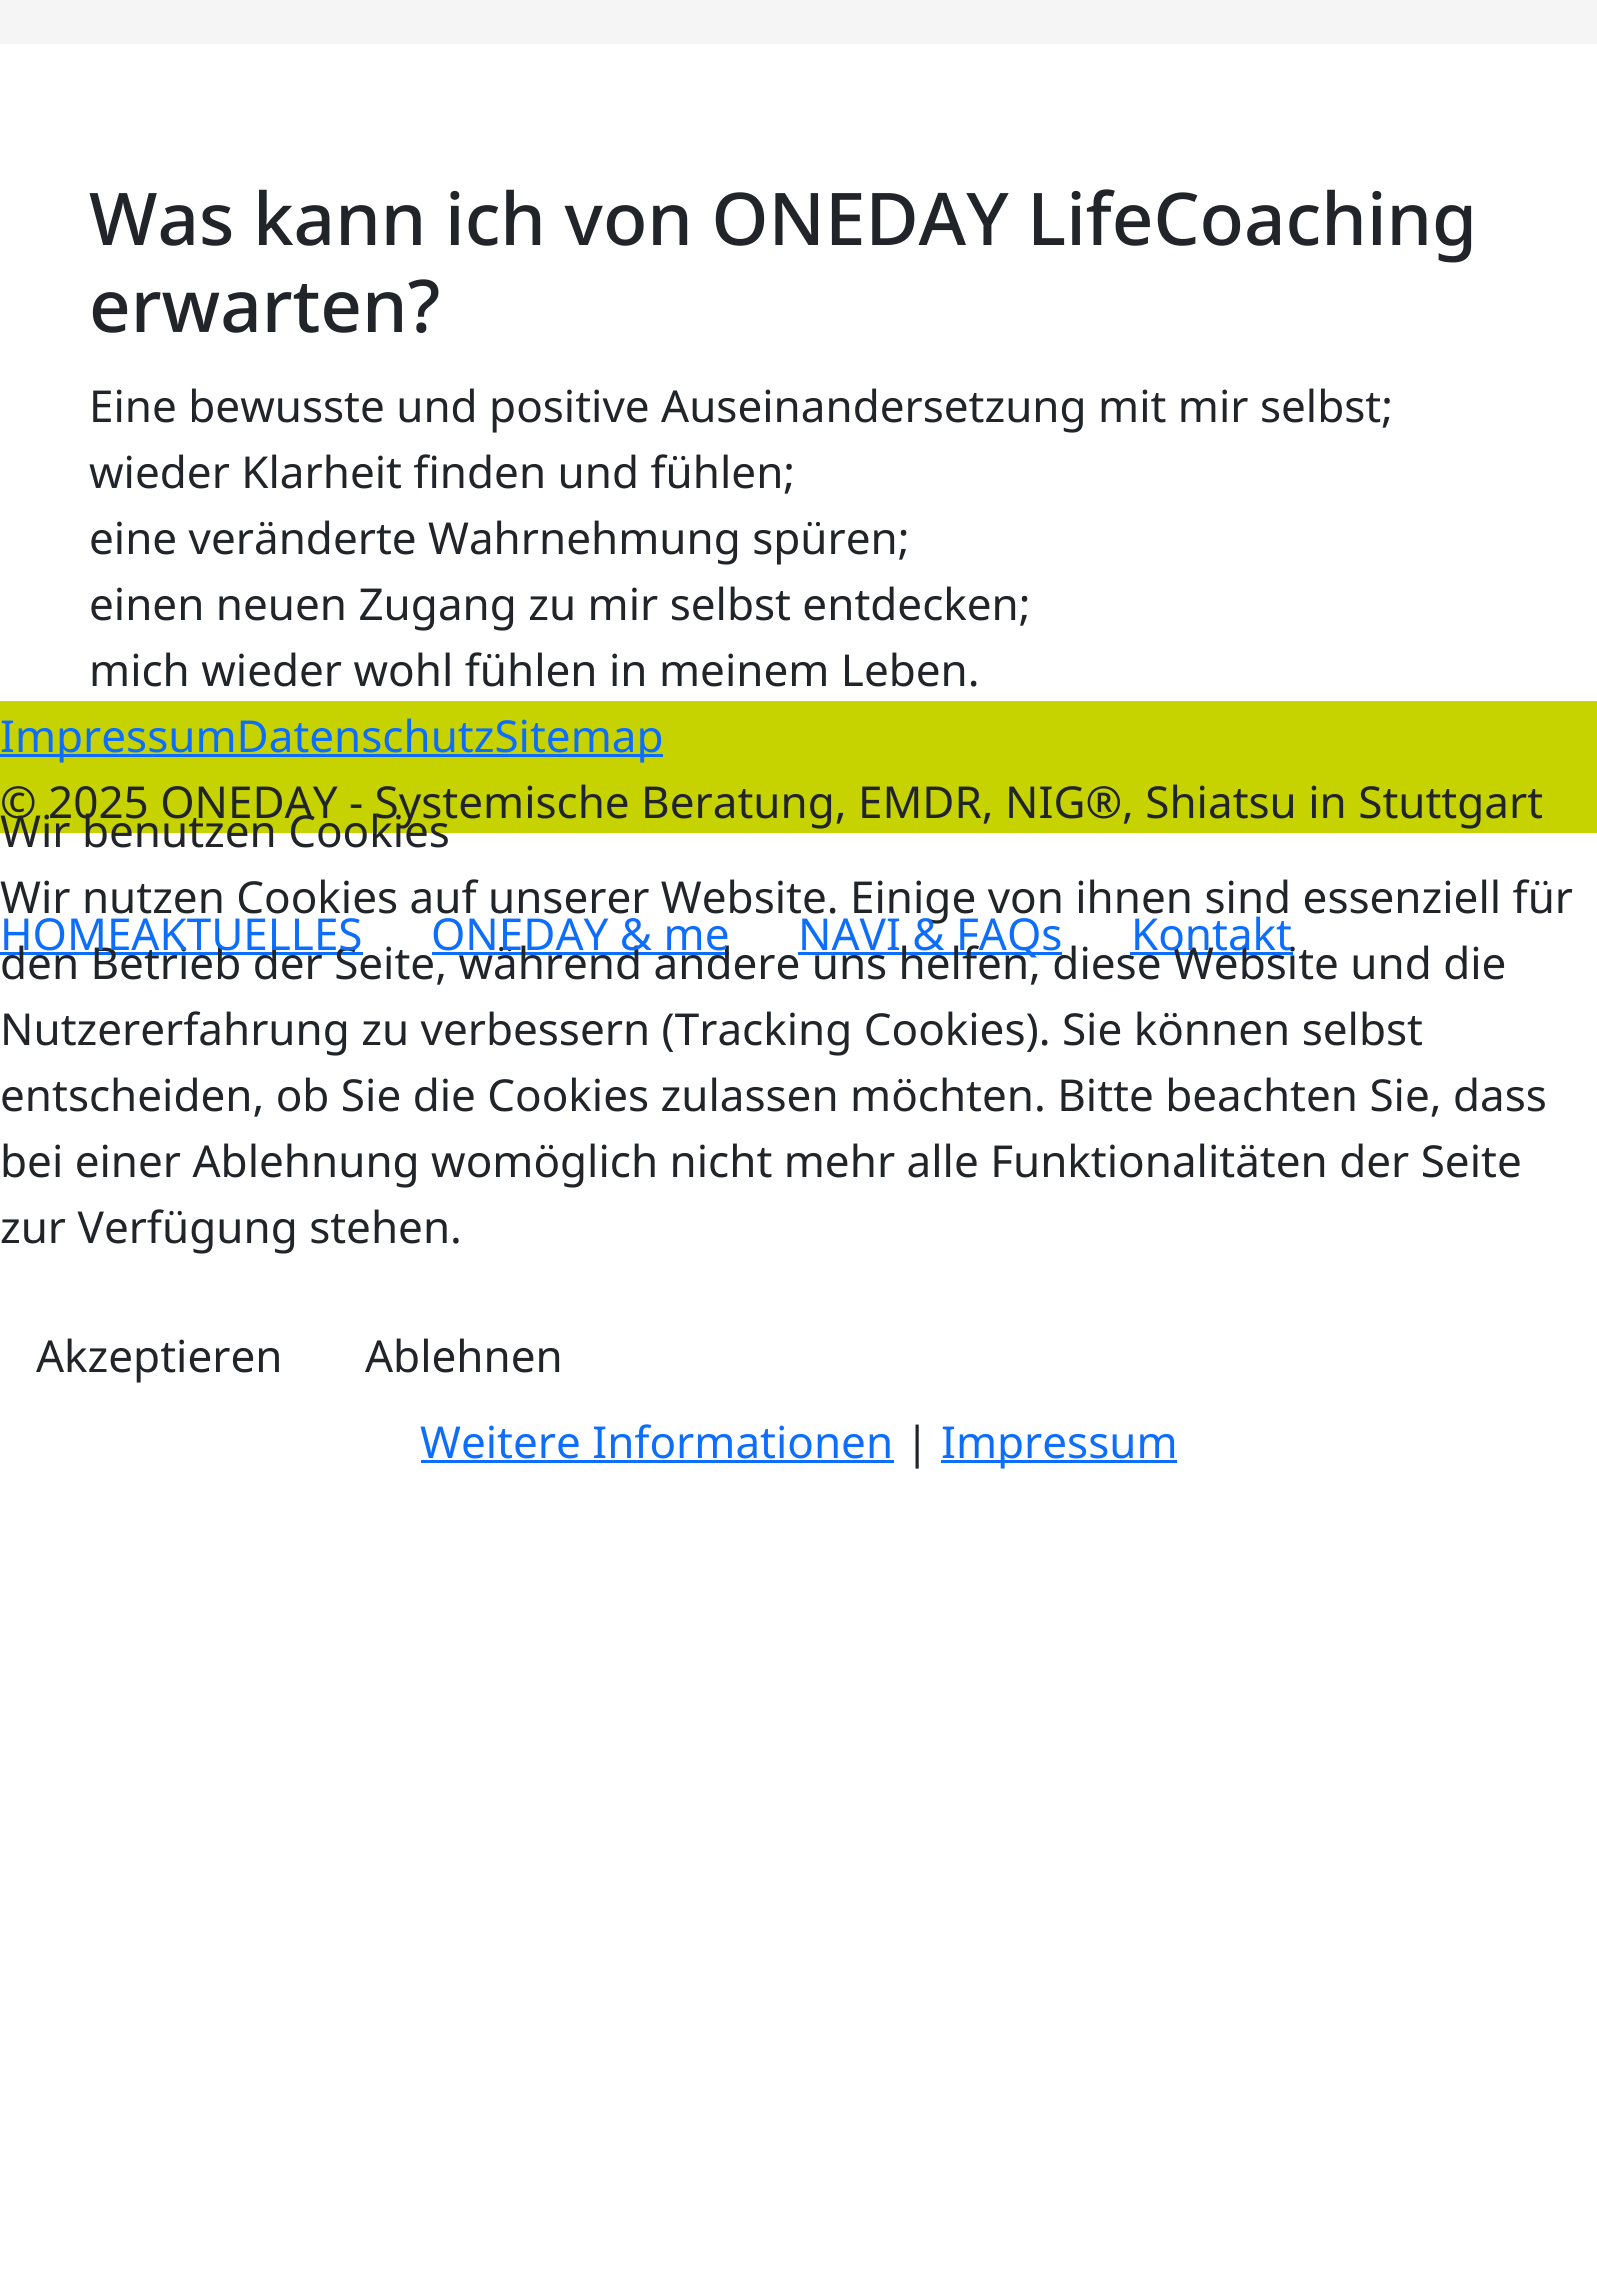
#include <cairo/cairo.h>
#include <math.h>
#include <stddef.h>


static void draw_spaced(cairo_t *cr, double x, double y, const char *s, double letter, double word) {
  cairo_move_to(cr, x, y);
  while (*s) {
    char ch[5] = {0};
    int n = 0;
    do ch[n++] = *s++; while ((*s & 0xC0) == 0x80);
    cairo_show_text(cr, ch);
    cairo_rel_move_to(cr, letter + word * (*ch == ' '), 0);
  }
}

static void draw(cairo_t *cr) {
  cairo_set_source_rgb(cr, 1, 1, 1);
  cairo_paint(cr);
  cairo_set_source_rgb(cr, 245 / 255.0, 245 / 255.0, 245 / 255.0);
  cairo_rectangle(cr, 0, 0, 1597, 44);
  cairo_fill(cr);
  cairo_set_source_rgb(cr, 198 / 255.0, 211 / 255.0, 1 / 255.0);
  cairo_rectangle(cr, 0, 701, 1597, 132);
  cairo_fill(cr);
  cairo_set_source_rgb(cr, 13 / 255.0, 110 / 255.0, 253 / 255.0);
  cairo_rectangle(cr, 0, 754, 663, 3);
  cairo_fill(cr);
  cairo_rectangle(cr, 421, 1460, 473, 3);
  cairo_fill(cr);
  cairo_rectangle(cr, 941, 1460, 236, 3);
  cairo_fill(cr);
  cairo_rectangle(cr, 0, 952, 363, 3);
  cairo_fill(cr);
  cairo_rectangle(cr, 432, 952, 297, 3);
  cairo_fill(cr);
  cairo_rectangle(cr, 798, 952, 264, 3);
  cairo_fill(cr);
  cairo_rectangle(cr, 1130, 952, 163, 3);
  cairo_fill(cr);
  cairo_select_font_face(cr, "Noto Sans Medium", CAIRO_FONT_SLANT_NORMAL, CAIRO_FONT_WEIGHT_NORMAL);
  cairo_set_font_size(cr, 72.7);
  cairo_set_source_rgb(cr, 33 / 255.0, 37 / 255.0, 41 / 255.0);
  draw_spaced(cr, 89, 245, "Was kann ich von ONEDAY LifeCoaching", 0, -0.25);
  cairo_move_to(cr, 89, 332);
  cairo_show_text(cr, "erwarten?");
  cairo_select_font_face(cr, "Noto Sans", CAIRO_FONT_SLANT_NORMAL, CAIRO_FONT_WEIGHT_NORMAL);
  cairo_set_font_size(cr, 44);
  cairo_move_to(cr, 89, 422);
  cairo_show_text(cr, "Eine bewusste und positive Auseinandersetzung mit mir selbst;");
  cairo_move_to(cr, 89, 488);
  cairo_show_text(cr, "wieder Klarheit finden und fühlen;");
  cairo_move_to(cr, 89, 554);
  cairo_show_text(cr, "eine veränderte Wahrnehmung spüren;");
  cairo_move_to(cr, 89, 620);
  cairo_show_text(cr, "einen neuen Zugang zu mir selbst entdecken;");
  cairo_move_to(cr, 89, 686);
  cairo_show_text(cr, "mich wieder wohl fühlen in meinem Leben.");
  cairo_set_source_rgb(cr, 13 / 255.0, 110 / 255.0, 253 / 255.0);
  cairo_move_to(cr, 0, 752);
  cairo_show_text(cr, "ImpressumDatenschutzSitemap");
  cairo_set_source_rgb(cr, 33 / 255.0, 37 / 255.0, 41 / 255.0);
  cairo_move_to(cr, 0, 818);
  cairo_show_text(cr, "© 2025 ONEDAY - Systemische Beratung, EMDR, NIG®, Shiatsu in Stuttgart");
  cairo_move_to(cr, 0, 847);
  cairo_show_text(cr, "Wir benutzen Cookies");
  cairo_move_to(cr, 0, 913);
  cairo_show_text(cr, "Wir nutzen Cookies auf unserer Website. Einige von ihnen sind essenziell für");
  cairo_move_to(cr, 0, 979);
  cairo_show_text(cr, "den Betrieb der Seite, während andere uns helfen, diese Website und die");
  cairo_move_to(cr, 0, 1045);
  cairo_show_text(cr, "Nutzererfahrung zu verbessern (Tracking Cookies). Sie können selbst");
  cairo_move_to(cr, 0, 1111);
  cairo_show_text(cr, "entscheiden, ob Sie die Cookies zulassen möchten. Bitte beachten Sie, dass");
  cairo_move_to(cr, 0, 1177);
  cairo_show_text(cr, "bei einer Ablehnung womöglich nicht mehr alle Funktionalitäten der Seite");
  cairo_move_to(cr, 0, 1243);
  cairo_show_text(cr, "zur Verfügung stehen.");
  cairo_move_to(cr, 36, 1372);
  cairo_show_text(cr, "Akzeptieren");
  cairo_move_to(cr, 365, 1372);
  cairo_show_text(cr, "Ablehnen");
  cairo_set_source_rgb(cr, 13 / 255.0, 110 / 255.0, 253 / 255.0);
  cairo_move_to(cr, 420, 1458);
  cairo_show_text(cr, "Weitere Informationen");
  cairo_set_source_rgb(cr, 33 / 255.0, 37 / 255.0, 41 / 255.0);
  cairo_move_to(cr, 905, 1458);
  cairo_show_text(cr, "|");
  cairo_set_source_rgb(cr, 13 / 255.0, 110 / 255.0, 253 / 255.0);
  cairo_move_to(cr, 941, 1458);
  cairo_show_text(cr, "Impressum");
  cairo_move_to(cr, 0, 950);
  cairo_show_text(cr, "HOMEAKTUELLES");
  cairo_move_to(cr, 431, 950);
  cairo_show_text(cr, "ONEDAY & me");
  cairo_move_to(cr, 798, 950);
  cairo_show_text(cr, "NAVI & FAQs");
  cairo_move_to(cr, 1131, 950);
  cairo_show_text(cr, "Kontakt");
}

int main(void) {
  cairo_surface_t *surface = cairo_image_surface_create(CAIRO_FORMAT_RGB24, 1597, 2269);
  cairo_t *cr = cairo_create(surface);
  cairo_font_options_t *options = cairo_font_options_create();
  cairo_font_options_set_hint_metrics(options, CAIRO_HINT_METRICS_OFF);
  cairo_font_options_set_hint_style(options, CAIRO_HINT_STYLE_NONE);
  cairo_set_font_options(cr, options);
  cairo_set_miter_limit(cr, 4);
  draw(cr);
  cairo_surface_write_to_png(surface, "out.png");
  cairo_font_options_destroy(options);
  cairo_destroy(cr);
  cairo_surface_destroy(surface);
  return 0;
}
